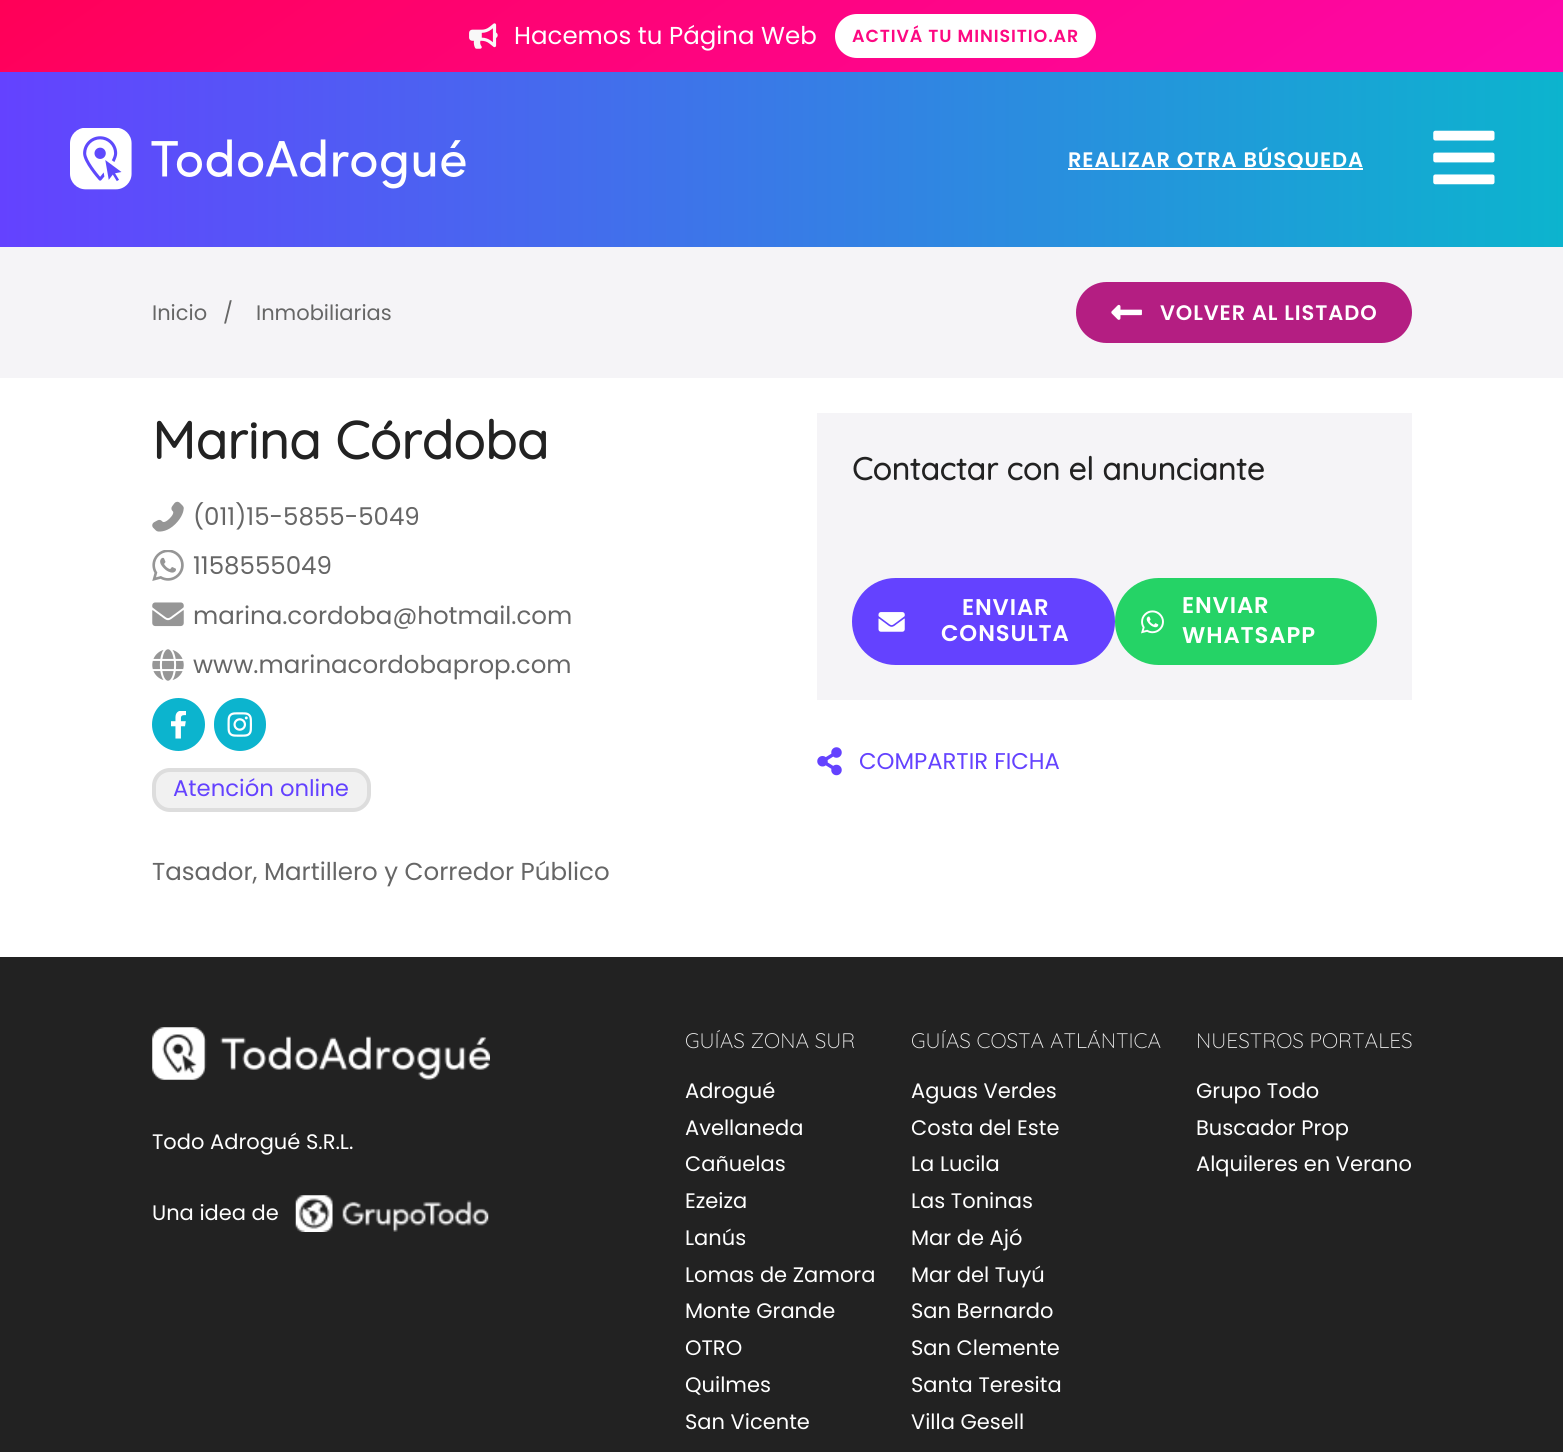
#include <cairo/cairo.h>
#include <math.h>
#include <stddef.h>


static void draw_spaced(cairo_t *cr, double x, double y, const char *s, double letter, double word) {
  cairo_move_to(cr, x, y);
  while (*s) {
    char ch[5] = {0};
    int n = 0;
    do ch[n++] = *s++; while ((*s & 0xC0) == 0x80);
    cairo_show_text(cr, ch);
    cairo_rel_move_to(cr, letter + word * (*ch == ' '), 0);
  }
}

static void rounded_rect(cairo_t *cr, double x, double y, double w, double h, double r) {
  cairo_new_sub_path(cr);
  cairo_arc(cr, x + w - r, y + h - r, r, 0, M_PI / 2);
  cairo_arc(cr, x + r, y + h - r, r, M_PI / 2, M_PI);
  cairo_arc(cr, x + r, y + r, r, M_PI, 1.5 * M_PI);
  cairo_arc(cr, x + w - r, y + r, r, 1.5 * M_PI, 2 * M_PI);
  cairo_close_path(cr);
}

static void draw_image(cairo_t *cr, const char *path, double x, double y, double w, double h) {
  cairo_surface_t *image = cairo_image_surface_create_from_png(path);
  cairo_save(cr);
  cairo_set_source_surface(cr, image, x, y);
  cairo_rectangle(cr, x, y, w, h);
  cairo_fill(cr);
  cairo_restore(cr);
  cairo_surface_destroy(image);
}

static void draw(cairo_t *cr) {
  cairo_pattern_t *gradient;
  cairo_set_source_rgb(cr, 1, 1, 1);
  cairo_paint(cr);
  gradient = cairo_pattern_create_linear(508, -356, 1056, 427);
  cairo_pattern_add_color_stop_rgba(gradient, 0, 1, 0, 87 / 255.0, 1);
  cairo_pattern_add_color_stop_rgba(gradient, 1, 253 / 255.0, 8 / 255.0, 173 / 255.0, 1);
  cairo_set_source(cr, gradient);
  cairo_pattern_destroy(gradient);
  cairo_rectangle(cr, 0, 0, 1563, 72);
  cairo_fill(cr);
  draw_image(cr, "images/1.png", 469, 23, 29, 26);
  cairo_set_source_rgb(cr, 1, 1, 1);
  rounded_rect(cr, 835, 14, 261, 44, 22);
  cairo_fill(cr);
  gradient = cairo_pattern_create_linear(0, 159, 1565, 159);
  cairo_pattern_add_color_stop_rgba(gradient, 0, 100 / 255.0, 66 / 255.0, 1, 1);
  cairo_pattern_add_color_stop_rgba(gradient, 1, 12 / 255.0, 180 / 255.0, 206 / 255.0, 1);
  cairo_set_source(cr, gradient);
  cairo_pattern_destroy(gradient);
  cairo_rectangle(cr, 0, 72, 1563, 175);
  cairo_fill(cr);
  draw_image(cr, "images/2.png", 70, 128, 396, 62);
  cairo_set_source_rgb(cr, 1, 1, 1);
  cairo_rectangle(cr, 1068, 168, 295, 2);
  cairo_fill(cr);
  draw_image(cr, "images/3.png", 1433, 130, 62, 55);
  cairo_set_source_rgb(cr, 245 / 255.0, 244 / 255.0, 247 / 255.0);
  cairo_rectangle(cr, 0, 247, 1563, 131);
  cairo_fill(cr);
  cairo_set_source_rgb(cr, 180 / 255.0, 30 / 255.0, 130 / 255.0);
  rounded_rect(cr, 1076, 282, 336, 61, 30.5);
  cairo_fill(cr);
  draw_image(cr, "images/4.png", 1111, 304, 31, 16);
  draw_image(cr, "images/5.png", 152, 501, 32, 31);
  draw_image(cr, "images/6.png", 152, 550, 32, 31);
  draw_image(cr, "images/7.png", 152, 602, 32, 25);
  draw_image(cr, "images/8.png", 152, 649, 32, 32);
  cairo_set_source_rgb(cr, 12 / 255.0, 180 / 255.0, 206 / 255.0);
  cairo_arc(cr, 178.5, 724.5, 26.5, 0, 2 * M_PI);
  cairo_fill(cr);
  draw_image(cr, "images/9.png", 171, 711, 15, 28);
  rounded_rect(cr, 214, 698, 52, 53, 26);
  cairo_fill(cr);
  draw_image(cr, "images/10.png", 227, 712, 25, 25);
  cairo_set_source_rgb(cr, 241 / 255.0, 241 / 255.0, 241 / 255.0);
  rounded_rect(cr, 154, 770, 215, 40, 16);
  cairo_fill_preserve(cr);
  cairo_set_source_rgb(cr, 221 / 255.0, 221 / 255.0, 221 / 255.0);
  cairo_set_line_width(cr, 4);
  cairo_stroke(cr);
  cairo_set_source_rgb(cr, 245 / 255.0, 244 / 255.0, 247 / 255.0);
  cairo_rectangle(cr, 817, 413, 595, 287);
  cairo_fill(cr);
  cairo_set_source_rgb(cr, 100 / 255.0, 66 / 255.0, 1);
  rounded_rect(cr, 852, 578, 263, 87, 43.5);
  cairo_fill(cr);
  draw_image(cr, "images/11.png", 878, 612, 27, 20);
  cairo_set_source_rgb(cr, 37 / 255.0, 211 / 255.0, 102 / 255.0);
  rounded_rect(cr, 1115, 578, 262, 87, 43.5);
  cairo_fill(cr);
  draw_image(cr, "images/12.png", 1141, 610, 23, 24);
  draw_image(cr, "images/13.png", 817, 747, 25, 29);
  cairo_set_source_rgb(cr, 34 / 255.0, 34 / 255.0, 34 / 255.0);
  cairo_rectangle(cr, 0, 957, 1563, 495);
  cairo_fill(cr);
  draw_image(cr, "images/14.png", 152, 1027, 338, 53);
  draw_image(cr, "images/15.png", 295, 1195, 194, 37);
  cairo_select_font_face(cr, "Poppins", CAIRO_FONT_SLANT_NORMAL, CAIRO_FONT_WEIGHT_NORMAL);
  cairo_set_font_size(cr, 24.5);
  cairo_set_source_rgb(cr, 1, 1, 1);
  cairo_move_to(cr, 514, 44);
  cairo_show_text(cr, "Hacemos tu Página Web");
  cairo_select_font_face(cr, "Poppins SemiBold", CAIRO_FONT_SLANT_NORMAL, CAIRO_FONT_WEIGHT_NORMAL);
  cairo_set_font_size(cr, 17.5);
  cairo_set_source_rgb(cr, 253 / 255.0, 8 / 255.0, 130 / 255.0);
  draw_spaced(cr, 852, 42, "ACTIVÁ TU MINISITIO.AR", 0.9, 0);
  cairo_set_font_size(cr, 21);
  cairo_set_source_rgb(cr, 1, 1, 1);
  draw_spaced(cr, 1068, 167, "REALIZAR OTRA BÚSQUEDA", 0.9, 0);
  cairo_select_font_face(cr, "Poppins", CAIRO_FONT_SLANT_NORMAL, CAIRO_FONT_WEIGHT_NORMAL);
  cairo_set_source_rgb(cr, 102 / 255.0, 102 / 255.0, 102 / 255.0);
  cairo_move_to(cr, 152, 320);
  cairo_show_text(cr, "Inicio");
  cairo_move_to(cr, 223, 320);
  cairo_show_text(cr, "/");
  cairo_move_to(cr, 256, 320);
  cairo_show_text(cr, "Inmobiliarias");
  cairo_select_font_face(cr, "Poppins SemiBold", CAIRO_FONT_SLANT_NORMAL, CAIRO_FONT_WEIGHT_NORMAL);
  cairo_set_source_rgb(cr, 1, 1, 1);
  draw_spaced(cr, 1160, 320, "VOLVER AL LISTADO", 0.9, 0);
  cairo_select_font_face(cr, "Quicksand", CAIRO_FONT_SLANT_NORMAL, CAIRO_FONT_WEIGHT_BOLD);
  cairo_set_font_size(cr, 52.5);
  cairo_set_source_rgb(cr, 34 / 255.0, 34 / 255.0, 34 / 255.0);
  cairo_move_to(cr, 152, 459);
  cairo_show_text(cr, "Marina Córdoba");
  cairo_select_font_face(cr, "Poppins", CAIRO_FONT_SLANT_NORMAL, CAIRO_FONT_WEIGHT_NORMAL);
  cairo_set_font_size(cr, 24.5);
  cairo_set_source_rgb(cr, 102 / 255.0, 102 / 255.0, 102 / 255.0);
  cairo_move_to(cr, 193, 525);
  cairo_show_text(cr, "(011)15-5855-5049");
  cairo_move_to(cr, 193, 574);
  cairo_show_text(cr, "1158555049");
  cairo_move_to(cr, 193, 624);
  cairo_show_text(cr, "marina.cordoba@hotmail.com");
  cairo_move_to(cr, 193, 673);
  cairo_show_text(cr, "www.marinacordobaprop.com");
  cairo_set_font_size(cr, 22.75);
  cairo_set_source_rgb(cr, 100 / 255.0, 66 / 255.0, 1);
  cairo_move_to(cr, 173, 796);
  cairo_show_text(cr, "Atención online");
  cairo_set_font_size(cr, 24.5);
  cairo_set_source_rgb(cr, 102 / 255.0, 102 / 255.0, 102 / 255.0);
  cairo_move_to(cr, 152, 880);
  cairo_show_text(cr, "Tasador, Martillero y Corredor Público");
  cairo_select_font_face(cr, "Quicksand", CAIRO_FONT_SLANT_NORMAL, CAIRO_FONT_WEIGHT_BOLD);
  cairo_set_font_size(cr, 31.5);
  cairo_set_source_rgb(cr, 34 / 255.0, 34 / 255.0, 34 / 255.0);
  cairo_move_to(cr, 852, 480);
  cairo_show_text(cr, "Contactar con el anunciante");
  cairo_select_font_face(cr, "Poppins SemiBold", CAIRO_FONT_SLANT_NORMAL, CAIRO_FONT_WEIGHT_NORMAL);
  cairo_set_font_size(cr, 22.75);
  cairo_set_source_rgb(cr, 1, 1, 1);
  draw_spaced(cr, 962, 615, "ENVIAR", 0.9, 0);
  draw_spaced(cr, 941, 641, "CONSULTA", 0.9, 0);
  draw_spaced(cr, 1182, 613, "ENVIAR", 0.9, 0);
  draw_spaced(cr, 1182, 643, "WHATSAPP", 0.9, 0);
  cairo_select_font_face(cr, "Poppins", CAIRO_FONT_SLANT_NORMAL, CAIRO_FONT_WEIGHT_NORMAL);
  cairo_set_source_rgb(cr, 100 / 255.0, 66 / 255.0, 1);
  cairo_move_to(cr, 859, 769);
  cairo_show_text(cr, "COMPARTIR FICHA");
  cairo_set_font_size(cr, 21);
  cairo_set_source_rgb(cr, 1, 1, 1);
  cairo_move_to(cr, 152, 1149);
  cairo_show_text(cr, "Todo Adrogué S.R.L.");
  cairo_move_to(cr, 152, 1220);
  cairo_show_text(cr, "Una idea de");
  cairo_select_font_face(cr, "Quicksand Light", CAIRO_FONT_SLANT_NORMAL, CAIRO_FONT_WEIGHT_NORMAL);
  cairo_set_source_rgb(cr, 241 / 255.0, 241 / 255.0, 241 / 255.0);
  cairo_move_to(cr, 685, 1048);
  cairo_show_text(cr, "GUÍAS ZONA SUR");
  cairo_select_font_face(cr, "Poppins", CAIRO_FONT_SLANT_NORMAL, CAIRO_FONT_WEIGHT_NORMAL);
  cairo_set_source_rgb(cr, 1, 1, 1);
  cairo_move_to(cr, 685, 1098);
  cairo_show_text(cr, "Adrogué");
  cairo_move_to(cr, 685, 1135);
  cairo_show_text(cr, "Avellaneda");
  cairo_move_to(cr, 685, 1171);
  cairo_show_text(cr, "Cañuelas");
  cairo_move_to(cr, 685, 1208);
  cairo_show_text(cr, "Ezeiza");
  cairo_move_to(cr, 685, 1245);
  cairo_show_text(cr, "Lanús");
  cairo_move_to(cr, 685, 1282);
  cairo_show_text(cr, "Lomas de Zamora");
  cairo_move_to(cr, 685, 1318);
  cairo_show_text(cr, "Monte Grande");
  cairo_move_to(cr, 685, 1355);
  cairo_show_text(cr, "OTRO");
  cairo_move_to(cr, 685, 1392);
  cairo_show_text(cr, "Quilmes");
  cairo_move_to(cr, 685, 1429);
  cairo_show_text(cr, "San Vicente");
  cairo_select_font_face(cr, "Quicksand Light", CAIRO_FONT_SLANT_NORMAL, CAIRO_FONT_WEIGHT_NORMAL);
  cairo_set_source_rgb(cr, 241 / 255.0, 241 / 255.0, 241 / 255.0);
  cairo_move_to(cr, 911, 1048);
  cairo_show_text(cr, "GUÍAS COSTA ATLÁNTICA");
  cairo_select_font_face(cr, "Poppins", CAIRO_FONT_SLANT_NORMAL, CAIRO_FONT_WEIGHT_NORMAL);
  cairo_set_source_rgb(cr, 1, 1, 1);
  cairo_move_to(cr, 911, 1098);
  cairo_show_text(cr, "Aguas Verdes");
  cairo_move_to(cr, 911, 1135);
  cairo_show_text(cr, "Costa del Este");
  cairo_move_to(cr, 911, 1171);
  cairo_show_text(cr, "La Lucila");
  cairo_move_to(cr, 911, 1208);
  cairo_show_text(cr, "Las Toninas");
  cairo_move_to(cr, 911, 1245);
  cairo_show_text(cr, "Mar de Ajó");
  cairo_move_to(cr, 911, 1282);
  cairo_show_text(cr, "Mar del Tuyú");
  cairo_move_to(cr, 911, 1318);
  cairo_show_text(cr, "San Bernardo");
  cairo_move_to(cr, 911, 1355);
  cairo_show_text(cr, "San Clemente");
  cairo_move_to(cr, 911, 1392);
  cairo_show_text(cr, "Santa Teresita");
  cairo_move_to(cr, 911, 1429);
  cairo_show_text(cr, "Villa Gesell");
  cairo_select_font_face(cr, "Quicksand Light", CAIRO_FONT_SLANT_NORMAL, CAIRO_FONT_WEIGHT_NORMAL);
  cairo_set_source_rgb(cr, 241 / 255.0, 241 / 255.0, 241 / 255.0);
  cairo_move_to(cr, 1196, 1048);
  cairo_show_text(cr, "NUESTROS PORTALES");
  cairo_select_font_face(cr, "Poppins", CAIRO_FONT_SLANT_NORMAL, CAIRO_FONT_WEIGHT_NORMAL);
  cairo_set_source_rgb(cr, 1, 1, 1);
  cairo_move_to(cr, 1196, 1098);
  cairo_show_text(cr, "Grupo Todo");
  cairo_move_to(cr, 1196, 1135);
  cairo_show_text(cr, "Buscador Prop");
  cairo_move_to(cr, 1196, 1171);
  cairo_show_text(cr, "Alquileres en Verano");
}

int main(void) {
  cairo_surface_t *surface = cairo_image_surface_create(CAIRO_FORMAT_RGB24, 1563, 1452);
  cairo_t *cr = cairo_create(surface);
  cairo_font_options_t *options = cairo_font_options_create();
  cairo_font_options_set_hint_metrics(options, CAIRO_HINT_METRICS_OFF);
  cairo_font_options_set_hint_style(options, CAIRO_HINT_STYLE_NONE);
  cairo_set_font_options(cr, options);
  cairo_set_miter_limit(cr, 4);
  draw(cr);
  cairo_surface_write_to_png(surface, "out.png");
  cairo_font_options_destroy(options);
  cairo_destroy(cr);
  cairo_surface_destroy(surface);
  return 0;
}
